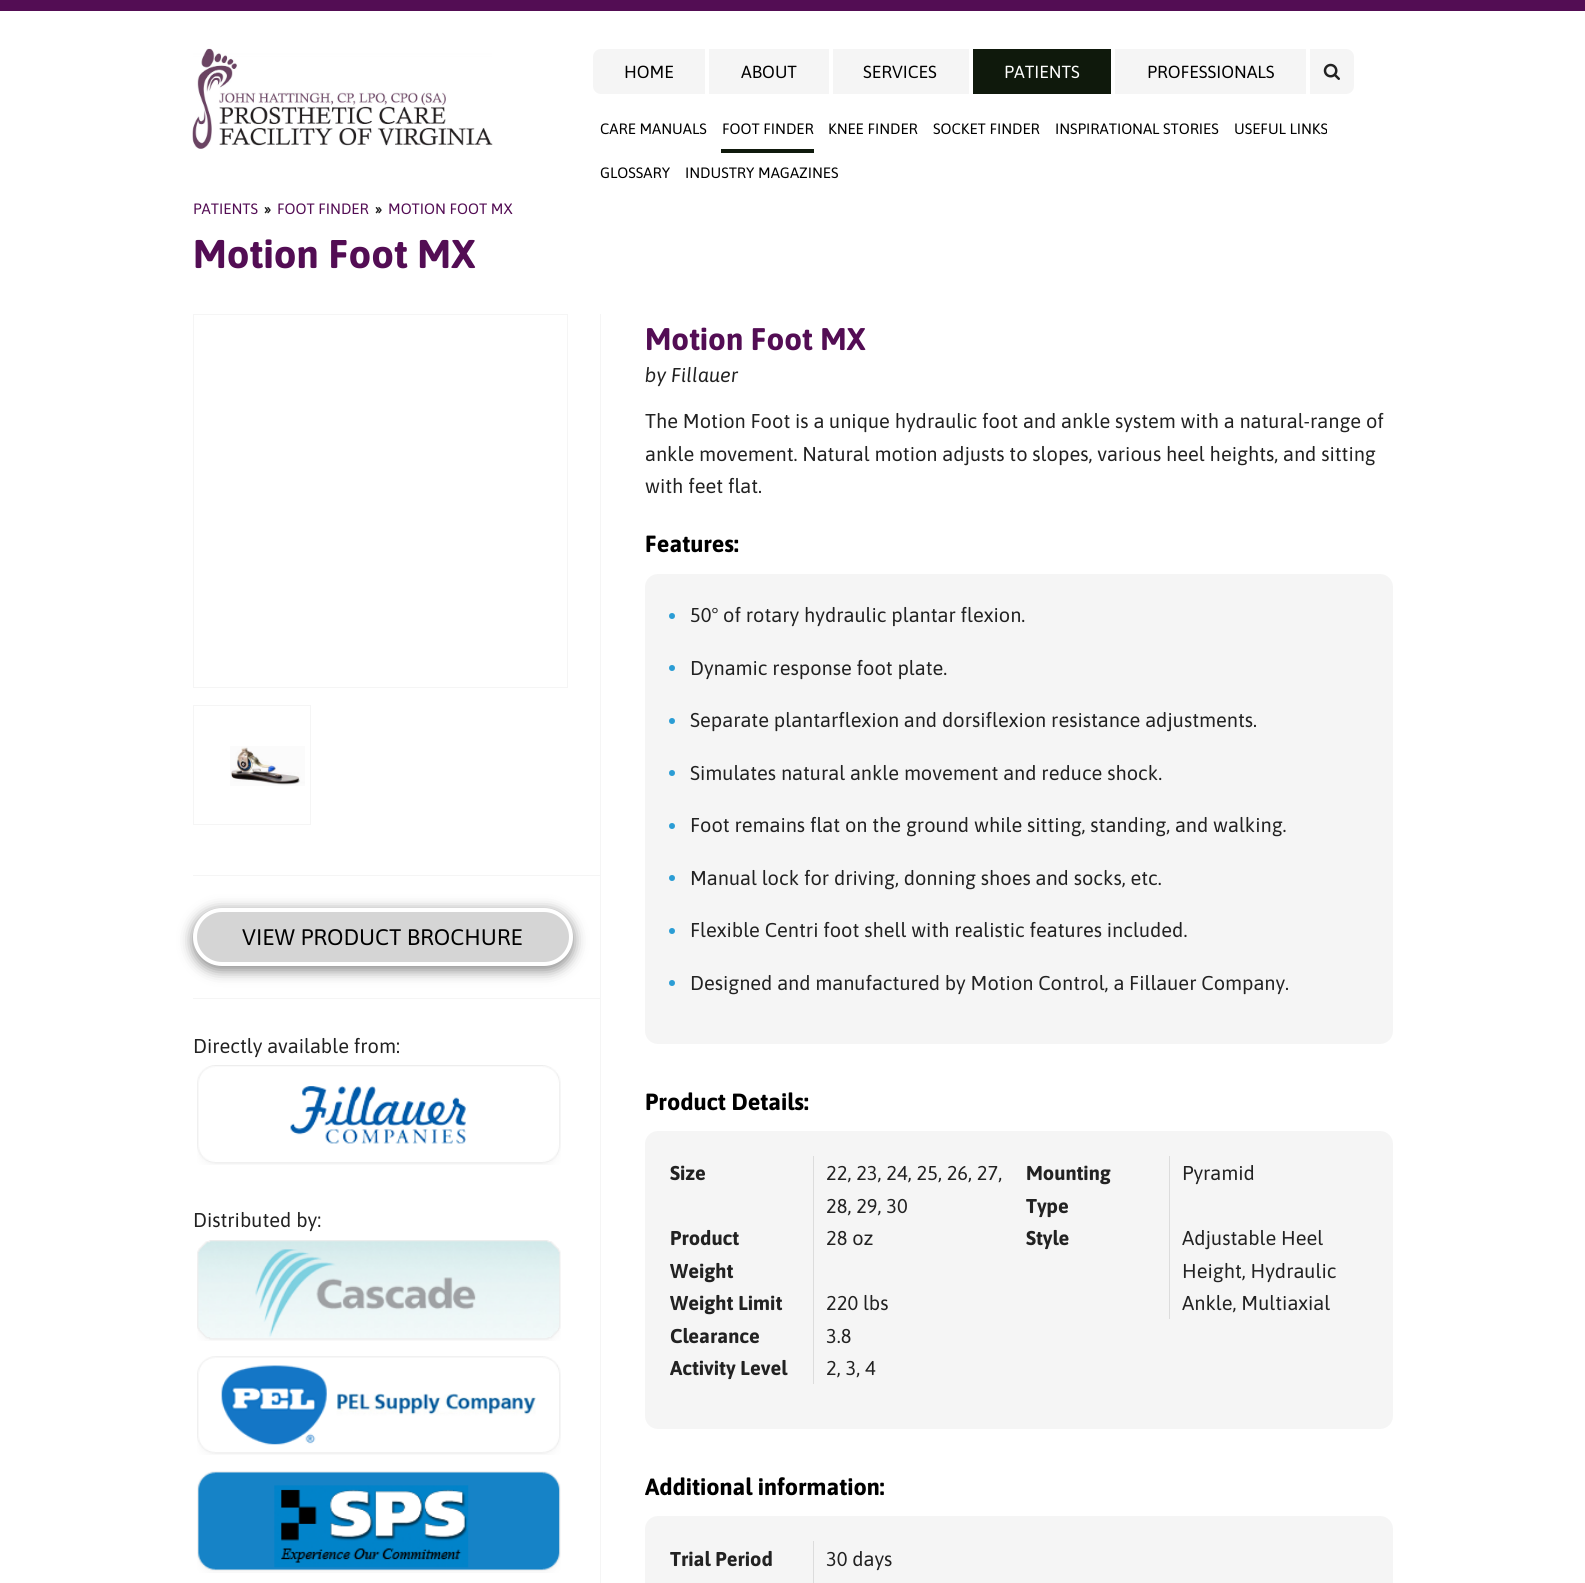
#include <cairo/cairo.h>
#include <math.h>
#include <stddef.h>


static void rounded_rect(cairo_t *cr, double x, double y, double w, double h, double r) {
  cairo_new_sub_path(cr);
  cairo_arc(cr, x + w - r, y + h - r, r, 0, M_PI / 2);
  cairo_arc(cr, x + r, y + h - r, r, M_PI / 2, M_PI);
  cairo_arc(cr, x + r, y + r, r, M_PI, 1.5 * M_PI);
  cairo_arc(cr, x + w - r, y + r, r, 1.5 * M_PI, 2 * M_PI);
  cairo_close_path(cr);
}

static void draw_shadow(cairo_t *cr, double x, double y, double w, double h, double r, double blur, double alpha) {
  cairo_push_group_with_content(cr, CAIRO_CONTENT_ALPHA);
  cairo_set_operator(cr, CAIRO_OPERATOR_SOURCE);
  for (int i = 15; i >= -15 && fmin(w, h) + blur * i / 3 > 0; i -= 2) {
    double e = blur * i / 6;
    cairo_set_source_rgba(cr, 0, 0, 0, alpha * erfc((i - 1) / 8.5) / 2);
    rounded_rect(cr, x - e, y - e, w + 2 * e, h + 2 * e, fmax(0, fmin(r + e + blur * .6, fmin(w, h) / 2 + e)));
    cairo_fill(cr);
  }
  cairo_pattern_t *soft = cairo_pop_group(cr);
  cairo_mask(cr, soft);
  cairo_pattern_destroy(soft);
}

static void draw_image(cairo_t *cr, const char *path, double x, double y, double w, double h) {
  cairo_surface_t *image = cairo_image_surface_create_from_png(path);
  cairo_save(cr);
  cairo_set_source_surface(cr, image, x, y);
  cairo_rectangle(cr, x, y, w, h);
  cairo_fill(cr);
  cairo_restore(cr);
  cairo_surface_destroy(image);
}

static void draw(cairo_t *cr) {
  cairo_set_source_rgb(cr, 1, 1, 1);
  cairo_paint(cr);
  cairo_set_source_rgb(cr, 83 / 255.0, 13 / 255.0, 84 / 255.0);
  cairo_rectangle(cr, 0, 0, 1585, 11);
  cairo_fill(cr);
  draw_image(cr, "images/1.png", 192, 48, 301, 101);
  cairo_set_source_rgb(cr, 15 / 255.0, 25 / 255.0, 12 / 255.0);
  cairo_rectangle(cr, 973, 49, 138, 45);
  cairo_fill(cr);
  cairo_rectangle(cr, 721, 149, 93, 4);
  cairo_fill(cr);
  cairo_set_source_rgb(cr, 245 / 255.0, 245 / 255.0, 245 / 255.0);
  cairo_new_path(cr);
  cairo_move_to(cr, 1310, 49);
  cairo_line_to(cr, 1346, 49);
  cairo_curve_to(cr, 1350.5, 49, 1354, 52.5, 1354, 57);
  cairo_line_to(cr, 1354, 86);
  cairo_curve_to(cr, 1354, 90.5, 1350.5, 94, 1346, 94);
  cairo_line_to(cr, 1310, 94);
  cairo_close_path(cr);
  cairo_fill(cr);
  draw_image(cr, "images/2.png", 1323, 63, 17, 17);
  cairo_new_path(cr);
  cairo_move_to(cr, 601, 49);
  cairo_line_to(cr, 705, 49);
  cairo_line_to(cr, 705, 94);
  cairo_line_to(cr, 601, 94);
  cairo_curve_to(cr, 596.5, 94, 593, 90.5, 593, 86);
  cairo_line_to(cr, 593, 57);
  cairo_curve_to(cr, 593, 52.5, 596.5, 49, 601, 49);
  cairo_close_path(cr);
  cairo_fill(cr);
  cairo_rectangle(cr, 709, 49, 120, 45);
  cairo_fill(cr);
  cairo_rectangle(cr, 833, 49, 136, 45);
  cairo_fill(cr);
  cairo_rectangle(cr, 1115, 49, 191, 45);
  cairo_fill(cr);
  cairo_rectangle(cr, 193.5, 314.5, 374, 373);
  cairo_set_line_width(cr, 1);
  cairo_stroke(cr);
  cairo_rectangle(cr, 193.5, 705.5, 117, 119);
  cairo_stroke(cr);
  draw_image(cr, "images/3.png", 230, 746, 75, 40);
  cairo_rectangle(cr, 600, 314, 1, 1269);
  cairo_fill(cr);
  cairo_rectangle(cr, 193, 875, 408, 1);
  cairo_fill(cr);
  cairo_rectangle(cr, 193, 998, 408, 1);
  cairo_fill(cr);
  cairo_set_source_rgb(cr, 0, 0, 0);
  draw_shadow(cr, 193, 911, 380, 59, 29.5, 7, 0.5);
  cairo_set_source_rgb(cr, 213 / 255.0, 213 / 255.0, 213 / 255.0);
  rounded_rect(cr, 195, 910, 376, 54, 27);
  cairo_fill_preserve(cr);
  cairo_set_source_rgb(cr, 1, 1, 1);
  cairo_set_line_width(cr, 4);
  cairo_stroke(cr);
  draw_image(cr, "images/4.png", 197, 1065, 364, 100);
  draw_image(cr, "images/5.png", 197, 1240, 364, 101);
  draw_image(cr, "images/6.png", 197, 1356, 364, 99);
  draw_image(cr, "images/7.png", 197, 1471, 364, 102);
  cairo_set_source_rgb(cr, 245 / 255.0, 245 / 255.0, 245 / 255.0);
  rounded_rect(cr, 645, 574, 748, 470, 13);
  cairo_fill(cr);
  cairo_set_source_rgb(cr, 43 / 255.0, 157 / 255.0, 213 / 255.0);
  cairo_arc(cr, 672, 616, 3, 0, 2 * M_PI);
  cairo_fill(cr);
  cairo_arc(cr, 672, 668, 3, 0, 2 * M_PI);
  cairo_fill(cr);
  cairo_arc(cr, 672, 721, 3, 0, 2 * M_PI);
  cairo_fill(cr);
  cairo_arc(cr, 672, 773, 3, 0, 2 * M_PI);
  cairo_fill(cr);
  cairo_arc(cr, 672, 826, 3, 0, 2 * M_PI);
  cairo_fill(cr);
  cairo_arc(cr, 672, 878, 3, 0, 2 * M_PI);
  cairo_fill(cr);
  cairo_arc(cr, 672, 931, 3, 0, 2 * M_PI);
  cairo_fill(cr);
  cairo_arc(cr, 672, 983, 3, 0, 2 * M_PI);
  cairo_fill(cr);
  cairo_set_source_rgb(cr, 245 / 255.0, 245 / 255.0, 245 / 255.0);
  rounded_rect(cr, 645, 1131, 748, 298, 13);
  cairo_fill(cr);
  cairo_set_source_rgb(cr, 220 / 255.0, 220 / 255.0, 220 / 255.0);
  cairo_rectangle(cr, 813, 1156, 1, 228);
  cairo_fill(cr);
  cairo_rectangle(cr, 1169, 1156, 1, 163);
  cairo_fill(cr);
  cairo_set_source_rgb(cr, 245 / 255.0, 245 / 255.0, 245 / 255.0);
  rounded_rect(cr, 645, 1516, 748, 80, 13);
  cairo_fill(cr);
  cairo_set_source_rgb(cr, 220 / 255.0, 220 / 255.0, 220 / 255.0);
  cairo_rectangle(cr, 813, 1541, 1, 42);
  cairo_fill(cr);
  cairo_select_font_face(cr, "Asap", CAIRO_FONT_SLANT_NORMAL, CAIRO_FONT_WEIGHT_NORMAL);
  cairo_set_font_size(cr, 17.5);
  cairo_set_source_rgb(cr, 1, 1, 1);
  cairo_move_to(cr, 1004, 78);
  cairo_show_text(cr, "PATIENTS");
  cairo_set_font_size(cr, 15);
  cairo_set_source_rgb(cr, 0, 0, 0);
  cairo_move_to(cr, 600, 134);
  cairo_show_text(cr, "CARE MANUALS");
  cairo_move_to(cr, 722, 134);
  cairo_show_text(cr, "FOOT FINDER");
  cairo_move_to(cr, 828, 134);
  cairo_show_text(cr, "KNEE FINDER");
  cairo_move_to(cr, 933, 134);
  cairo_show_text(cr, "SOCKET FINDER");
  cairo_move_to(cr, 1055, 134);
  cairo_show_text(cr, "INSPIRATIONAL STORIES");
  cairo_move_to(cr, 1234, 134);
  cairo_show_text(cr, "USEFUL LINKS");
  cairo_move_to(cr, 600, 178);
  cairo_show_text(cr, "GLOSSARY");
  cairo_move_to(cr, 685, 178);
  cairo_show_text(cr, "INDUSTRY MAGAZINES");
  cairo_set_font_size(cr, 17.5);
  cairo_move_to(cr, 624, 78);
  cairo_show_text(cr, "HOME");
  cairo_move_to(cr, 741, 78);
  cairo_show_text(cr, "ABOUT");
  cairo_move_to(cr, 863, 78);
  cairo_show_text(cr, "SERVICES");
  cairo_move_to(cr, 1147, 78);
  cairo_show_text(cr, "PROFESSIONALS");
  cairo_set_font_size(cr, 15);
  cairo_set_source_rgb(cr, 83 / 255.0, 13 / 255.0, 84 / 255.0);
  cairo_move_to(cr, 193, 214);
  cairo_show_text(cr, "PATIENTS");
  cairo_select_font_face(cr, "Asap", CAIRO_FONT_SLANT_NORMAL, CAIRO_FONT_WEIGHT_BOLD);
  cairo_set_source_rgb(cr, 34 / 255.0, 34 / 255.0, 34 / 255.0);
  cairo_move_to(cr, 264, 214);
  cairo_show_text(cr, "»");
  cairo_select_font_face(cr, "Asap", CAIRO_FONT_SLANT_NORMAL, CAIRO_FONT_WEIGHT_NORMAL);
  cairo_set_source_rgb(cr, 83 / 255.0, 13 / 255.0, 84 / 255.0);
  cairo_move_to(cr, 277, 214);
  cairo_show_text(cr, "FOOT FINDER");
  cairo_select_font_face(cr, "Asap", CAIRO_FONT_SLANT_NORMAL, CAIRO_FONT_WEIGHT_BOLD);
  cairo_set_source_rgb(cr, 34 / 255.0, 34 / 255.0, 34 / 255.0);
  cairo_move_to(cr, 375, 214);
  cairo_show_text(cr, "»");
  cairo_select_font_face(cr, "Asap", CAIRO_FONT_SLANT_NORMAL, CAIRO_FONT_WEIGHT_NORMAL);
  cairo_set_source_rgb(cr, 83 / 255.0, 13 / 255.0, 84 / 255.0);
  cairo_move_to(cr, 388, 214);
  cairo_show_text(cr, "MOTION FOOT MX");
  cairo_select_font_face(cr, "Asap", CAIRO_FONT_SLANT_NORMAL, CAIRO_FONT_WEIGHT_BOLD);
  cairo_set_font_size(cr, 40);
  cairo_move_to(cr, 193, 268);
  cairo_show_text(cr, "Motion Foot MX");
  cairo_select_font_face(cr, "Asap", CAIRO_FONT_SLANT_NORMAL, CAIRO_FONT_WEIGHT_NORMAL);
  cairo_set_font_size(cr, 22.5);
  cairo_set_source_rgb(cr, 0, 0, 0);
  cairo_move_to(cr, 242, 945);
  cairo_show_text(cr, "VIEW PRODUCT BROCHURE");
  cairo_set_font_size(cr, 20);
  cairo_set_source_rgb(cr, 34 / 255.0, 34 / 255.0, 34 / 255.0);
  cairo_move_to(cr, 193, 1053);
  cairo_show_text(cr, "Directly available from:");
  cairo_move_to(cr, 193, 1227);
  cairo_show_text(cr, "Distributed by:");
  cairo_select_font_face(cr, "Asap", CAIRO_FONT_SLANT_NORMAL, CAIRO_FONT_WEIGHT_BOLD);
  cairo_set_font_size(cr, 31.25);
  cairo_set_source_rgb(cr, 83 / 255.0, 13 / 255.0, 84 / 255.0);
  cairo_move_to(cr, 645, 350);
  cairo_show_text(cr, "Motion Foot MX");
  cairo_select_font_face(cr, "Asap", CAIRO_FONT_SLANT_ITALIC, CAIRO_FONT_WEIGHT_NORMAL);
  cairo_set_font_size(cr, 20);
  cairo_set_source_rgb(cr, 34 / 255.0, 34 / 255.0, 34 / 255.0);
  cairo_move_to(cr, 645, 382);
  cairo_show_text(cr, "by Fillauer");
  cairo_select_font_face(cr, "Asap", CAIRO_FONT_SLANT_NORMAL, CAIRO_FONT_WEIGHT_NORMAL);
  cairo_move_to(cr, 645, 428);
  cairo_show_text(cr, "The Motion Foot is a unique hydraulic foot and ankle system with a natural-range of");
  cairo_move_to(cr, 645, 461);
  cairo_show_text(cr, "ankle movement. Natural motion adjusts to slopes, various heel heights, and sitting");
  cairo_move_to(cr, 645, 493);
  cairo_show_text(cr, "with feet flat.");
  cairo_select_font_face(cr, "Asap", CAIRO_FONT_SLANT_NORMAL, CAIRO_FONT_WEIGHT_BOLD);
  cairo_set_font_size(cr, 23.4);
  cairo_set_source_rgb(cr, 0, 0, 0);
  cairo_move_to(cr, 645, 552);
  cairo_show_text(cr, "Features:");
  cairo_select_font_face(cr, "Asap", CAIRO_FONT_SLANT_NORMAL, CAIRO_FONT_WEIGHT_NORMAL);
  cairo_set_font_size(cr, 20);
  cairo_set_source_rgb(cr, 34 / 255.0, 34 / 255.0, 34 / 255.0);
  cairo_move_to(cr, 690, 622);
  cairo_show_text(cr, "50° of rotary hydraulic plantar flexion.");
  cairo_move_to(cr, 690, 675);
  cairo_show_text(cr, "Dynamic response foot plate.");
  cairo_move_to(cr, 690, 727);
  cairo_show_text(cr, "Separate plantarflexion and dorsiflexion resistance adjustments.");
  cairo_move_to(cr, 690, 780);
  cairo_show_text(cr, "Simulates natural ankle movement and reduce shock.");
  cairo_move_to(cr, 690, 832);
  cairo_show_text(cr, "Foot remains flat on the ground while sitting, standing, and walking.");
  cairo_move_to(cr, 690, 885);
  cairo_show_text(cr, "Manual lock for driving, donning shoes and socks, etc.");
  cairo_move_to(cr, 690, 937);
  cairo_show_text(cr, "Flexible Centri foot shell with realistic features included.");
  cairo_move_to(cr, 690, 990);
  cairo_show_text(cr, "Designed and manufactured by Motion Control, a Fillauer Company.");
  cairo_select_font_face(cr, "Asap", CAIRO_FONT_SLANT_NORMAL, CAIRO_FONT_WEIGHT_BOLD);
  cairo_set_font_size(cr, 23.4);
  cairo_set_source_rgb(cr, 0, 0, 0);
  cairo_move_to(cr, 645, 1110);
  cairo_show_text(cr, "Product Details:");
  cairo_set_font_size(cr, 20);
  cairo_set_source_rgb(cr, 34 / 255.0, 34 / 255.0, 34 / 255.0);
  cairo_move_to(cr, 670, 1180);
  cairo_show_text(cr, "Size");
  cairo_select_font_face(cr, "Asap", CAIRO_FONT_SLANT_NORMAL, CAIRO_FONT_WEIGHT_NORMAL);
  cairo_move_to(cr, 826, 1180);
  cairo_show_text(cr, "22, 23, 24, 25, 26, 27,");
  cairo_move_to(cr, 826, 1213);
  cairo_show_text(cr, "28, 29, 30");
  cairo_select_font_face(cr, "Asap", CAIRO_FONT_SLANT_NORMAL, CAIRO_FONT_WEIGHT_BOLD);
  cairo_move_to(cr, 670, 1245);
  cairo_show_text(cr, "Product");
  cairo_move_to(cr, 670, 1278);
  cairo_show_text(cr, "Weight");
  cairo_select_font_face(cr, "Asap", CAIRO_FONT_SLANT_NORMAL, CAIRO_FONT_WEIGHT_NORMAL);
  cairo_move_to(cr, 826, 1245);
  cairo_show_text(cr, "28 oz");
  cairo_select_font_face(cr, "Asap", CAIRO_FONT_SLANT_NORMAL, CAIRO_FONT_WEIGHT_BOLD);
  cairo_move_to(cr, 670, 1310);
  cairo_show_text(cr, "Weight Limit");
  cairo_select_font_face(cr, "Asap", CAIRO_FONT_SLANT_NORMAL, CAIRO_FONT_WEIGHT_NORMAL);
  cairo_move_to(cr, 826, 1310);
  cairo_show_text(cr, "220 lbs");
  cairo_select_font_face(cr, "Asap", CAIRO_FONT_SLANT_NORMAL, CAIRO_FONT_WEIGHT_BOLD);
  cairo_move_to(cr, 670, 1343);
  cairo_show_text(cr, "Clearance");
  cairo_select_font_face(cr, "Asap", CAIRO_FONT_SLANT_NORMAL, CAIRO_FONT_WEIGHT_NORMAL);
  cairo_move_to(cr, 826, 1343);
  cairo_show_text(cr, "3.8");
  cairo_select_font_face(cr, "Asap", CAIRO_FONT_SLANT_NORMAL, CAIRO_FONT_WEIGHT_BOLD);
  cairo_move_to(cr, 670, 1375);
  cairo_show_text(cr, "Activity Level");
  cairo_select_font_face(cr, "Asap", CAIRO_FONT_SLANT_NORMAL, CAIRO_FONT_WEIGHT_NORMAL);
  cairo_move_to(cr, 826, 1375);
  cairo_show_text(cr, "2, 3, 4");
  cairo_select_font_face(cr, "Asap", CAIRO_FONT_SLANT_NORMAL, CAIRO_FONT_WEIGHT_BOLD);
  cairo_move_to(cr, 1026, 1180);
  cairo_show_text(cr, "Mounting");
  cairo_move_to(cr, 1026, 1213);
  cairo_show_text(cr, "Type");
  cairo_select_font_face(cr, "Asap", CAIRO_FONT_SLANT_NORMAL, CAIRO_FONT_WEIGHT_NORMAL);
  cairo_move_to(cr, 1182, 1180);
  cairo_show_text(cr, "Pyramid");
  cairo_select_font_face(cr, "Asap", CAIRO_FONT_SLANT_NORMAL, CAIRO_FONT_WEIGHT_BOLD);
  cairo_move_to(cr, 1026, 1245);
  cairo_show_text(cr, "Style");
  cairo_select_font_face(cr, "Asap", CAIRO_FONT_SLANT_NORMAL, CAIRO_FONT_WEIGHT_NORMAL);
  cairo_move_to(cr, 1182, 1245);
  cairo_show_text(cr, "Adjustable Heel");
  cairo_move_to(cr, 1182, 1278);
  cairo_show_text(cr, "Height, Hydraulic");
  cairo_move_to(cr, 1182, 1310);
  cairo_show_text(cr, "Ankle, Multiaxial");
  cairo_select_font_face(cr, "Asap", CAIRO_FONT_SLANT_NORMAL, CAIRO_FONT_WEIGHT_BOLD);
  cairo_set_font_size(cr, 23.4);
  cairo_set_source_rgb(cr, 0, 0, 0);
  cairo_move_to(cr, 645, 1495);
  cairo_show_text(cr, "Additional information:");
  cairo_set_font_size(cr, 20);
  cairo_set_source_rgb(cr, 34 / 255.0, 34 / 255.0, 34 / 255.0);
  cairo_move_to(cr, 670, 1566);
  cairo_show_text(cr, "Trial Period");
  cairo_select_font_face(cr, "Asap", CAIRO_FONT_SLANT_NORMAL, CAIRO_FONT_WEIGHT_NORMAL);
  cairo_move_to(cr, 826, 1566);
  cairo_show_text(cr, "30 days");
}

int main(void) {
  cairo_surface_t *surface = cairo_image_surface_create(CAIRO_FORMAT_RGB24, 1585, 1583);
  cairo_t *cr = cairo_create(surface);
  cairo_font_options_t *options = cairo_font_options_create();
  cairo_font_options_set_hint_metrics(options, CAIRO_HINT_METRICS_OFF);
  cairo_font_options_set_hint_style(options, CAIRO_HINT_STYLE_NONE);
  cairo_set_font_options(cr, options);
  cairo_set_miter_limit(cr, 4);
  draw(cr);
  cairo_surface_write_to_png(surface, "out.png");
  cairo_font_options_destroy(options);
  cairo_destroy(cr);
  cairo_surface_destroy(surface);
  return 0;
}
